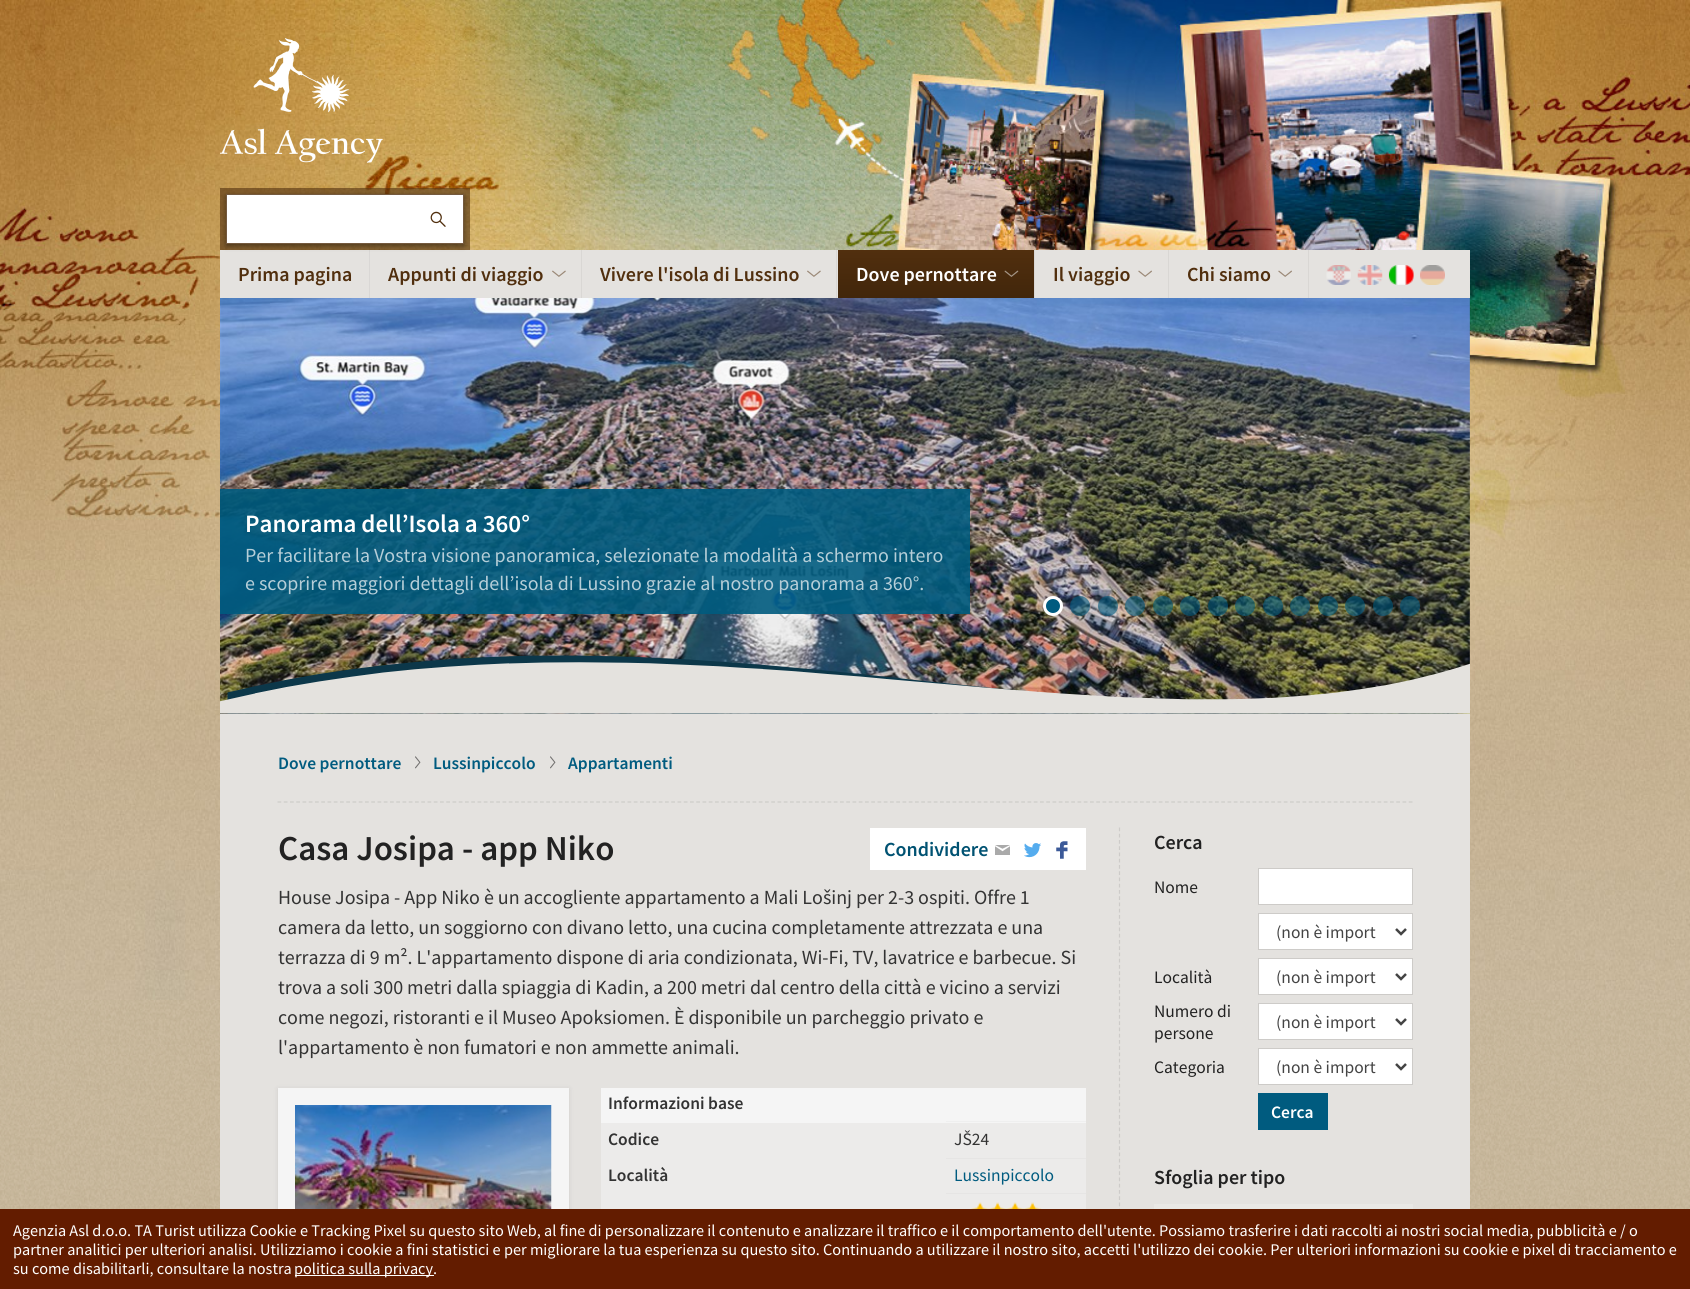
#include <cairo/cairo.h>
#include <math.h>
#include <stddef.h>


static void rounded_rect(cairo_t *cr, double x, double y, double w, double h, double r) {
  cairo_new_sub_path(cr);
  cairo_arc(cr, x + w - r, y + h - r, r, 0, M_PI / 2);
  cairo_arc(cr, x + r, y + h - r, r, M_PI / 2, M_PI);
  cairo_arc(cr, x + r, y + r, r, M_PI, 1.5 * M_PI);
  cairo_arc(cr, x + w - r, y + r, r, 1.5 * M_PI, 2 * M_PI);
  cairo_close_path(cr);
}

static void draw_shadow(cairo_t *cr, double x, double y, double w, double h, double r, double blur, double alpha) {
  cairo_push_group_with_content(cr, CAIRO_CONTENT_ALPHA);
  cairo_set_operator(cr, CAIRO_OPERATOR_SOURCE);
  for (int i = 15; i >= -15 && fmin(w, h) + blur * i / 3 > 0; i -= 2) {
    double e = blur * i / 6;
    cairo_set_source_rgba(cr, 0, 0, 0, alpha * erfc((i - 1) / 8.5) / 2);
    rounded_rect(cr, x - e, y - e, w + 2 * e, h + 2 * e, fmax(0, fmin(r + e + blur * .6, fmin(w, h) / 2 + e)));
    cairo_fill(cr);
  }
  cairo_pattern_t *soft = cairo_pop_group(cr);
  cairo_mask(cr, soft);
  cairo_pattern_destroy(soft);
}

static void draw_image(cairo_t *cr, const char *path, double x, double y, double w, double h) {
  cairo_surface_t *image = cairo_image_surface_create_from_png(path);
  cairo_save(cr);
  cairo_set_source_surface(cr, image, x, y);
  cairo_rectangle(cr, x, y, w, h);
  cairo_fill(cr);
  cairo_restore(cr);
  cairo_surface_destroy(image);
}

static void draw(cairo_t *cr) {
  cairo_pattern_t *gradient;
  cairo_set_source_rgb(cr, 1, 1, 1);
  cairo_paint(cr);
  draw_image(cr, "images/1.png", 0, 1000, 1690, 209);
  draw_image(cr, "images/2.png", 0, 0, 1690, 1000);
  draw_image(cr, "images/3.png", 220, 38, 163, 125);
  cairo_set_source_rgb(cr, 228 / 255.0, 226 / 255.0, 223 / 255.0);
  cairo_rectangle(cr, 220, 250, 1250, 48);
  cairo_fill(cr);
  cairo_set_source_rgba(cr, 81 / 255.0, 47 / 255.0, 14 / 255.0, 0.6);
  cairo_rectangle(cr, 220, 188, 250, 62);
  cairo_fill(cr);
  cairo_set_source_rgb(cr, 0, 0, 0);
  draw_shadow(cr, 226, 196, 238, 50, 0, 2.5, 0.4);
  cairo_set_source_rgb(cr, 1, 1, 1);
  cairo_rectangle(cr, 226.5, 194.5, 237, 49);
  cairo_fill_preserve(cr);
  cairo_set_source_rgb(cr, 116 / 255.0, 89 / 255.0, 62 / 255.0);
  cairo_set_line_width(cr, 1);
  cairo_stroke(cr);
  draw_image(cr, "images/4.png", 430, 211, 16, 16);
  cairo_set_source_rgba(cr, 0, 0, 0, 0.05);
  cairo_rectangle(cr, 369, 250, 1, 48);
  cairo_fill(cr);
  cairo_set_source_rgb(cr, 217 / 255.0, 215 / 255.0, 212 / 255.0);
  cairo_rectangle(cr, 581, 250, 1, 48);
  cairo_fill(cr);
  draw_image(cr, "images/5.png", 552, 270, 14, 7);
  cairo_rectangle(cr, 836, 250, 1, 48);
  cairo_fill(cr);
  draw_image(cr, "images/5.png", 807, 270, 14, 7);
  cairo_rectangle(cr, 1034, 250, 1, 48);
  cairo_fill(cr);
  gradient = cairo_pattern_create_linear(936, 298, 936, 250);
  cairo_pattern_add_color_stop_rgba(gradient, 0, 65 / 255.0, 38 / 255.0, 11 / 255.0, 1);
  cairo_pattern_add_color_stop_rgba(gradient, 1, 81 / 255.0, 47 / 255.0, 14 / 255.0, 1);
  cairo_set_source(cr, gradient);
  cairo_pattern_destroy(gradient);
  cairo_rectangle(cr, 838, 250, 196, 48);
  cairo_fill(cr);
  draw_image(cr, "images/6.png", 1004, 270, 15, 7);
  cairo_set_source_rgb(cr, 217 / 255.0, 215 / 255.0, 212 / 255.0);
  cairo_rectangle(cr, 1168, 250, 1, 48);
  cairo_fill(cr);
  draw_image(cr, "images/7.png", 1138, 270, 14, 7);
  cairo_rectangle(cr, 1308, 250, 1, 48);
  cairo_fill(cr);
  draw_image(cr, "images/7.png", 1278, 270, 14, 7);
  draw_image(cr, "images/8.png", 1326, 265, 25, 20);
  draw_image(cr, "images/9.png", 1357, 265, 26, 20);
  draw_image(cr, "images/10.png", 1388, 265, 26, 20);
  draw_image(cr, "images/11.png", 1420, 265, 25, 20);
  draw_image(cr, "images/12.png", 220, 298, 1250, 416);
  cairo_set_source_rgba(cr, 0, 91 / 255.0, 127 / 255.0, 0.9);
  cairo_rectangle(cr, 220, 489, 750, 125);
  cairo_fill(cr);
  cairo_set_source_rgb(cr, 0, 91 / 255.0, 127 / 255.0);
  cairo_arc(cr, 1053, 606, 8.5, 0, 2 * M_PI);
  cairo_fill_preserve(cr);
  cairo_set_source_rgb(cr, 1, 1, 1);
  cairo_set_line_width(cr, 3);
  cairo_stroke(cr);
  cairo_set_source_rgba(cr, 0, 91 / 255.0, 127 / 255.0, 0.6);
  cairo_arc(cr, 1080, 606, 10, 0, 2 * M_PI);
  cairo_fill(cr);
  cairo_arc(cr, 1108, 606, 10, 0, 2 * M_PI);
  cairo_fill(cr);
  cairo_arc(cr, 1135, 606, 10, 0, 2 * M_PI);
  cairo_fill(cr);
  cairo_arc(cr, 1163, 606, 10, 0, 2 * M_PI);
  cairo_fill(cr);
  cairo_arc(cr, 1190, 606, 10, 0, 2 * M_PI);
  cairo_fill(cr);
  cairo_arc(cr, 1218, 606, 10, 0, 2 * M_PI);
  cairo_fill(cr);
  cairo_arc(cr, 1245, 606, 10, 0, 2 * M_PI);
  cairo_fill(cr);
  cairo_arc(cr, 1273, 606, 10, 0, 2 * M_PI);
  cairo_fill(cr);
  cairo_arc(cr, 1300, 606, 10, 0, 2 * M_PI);
  cairo_fill(cr);
  cairo_arc(cr, 1328, 606, 10, 0, 2 * M_PI);
  cairo_fill(cr);
  cairo_arc(cr, 1355, 606, 10, 0, 2 * M_PI);
  cairo_fill(cr);
  cairo_arc(cr, 1383, 606, 10, 0, 2 * M_PI);
  cairo_fill(cr);
  cairo_arc(cr, 1410, 606, 10, 0, 2 * M_PI);
  cairo_fill(cr);
  cairo_set_source_rgb(cr, 228 / 255.0, 226 / 255.0, 223 / 255.0);
  cairo_rectangle(cr, 220, 714, 1250, 495);
  cairo_fill(cr);
  draw_image(cr, "images/13.png", 220, 655, 1250, 59);
  draw_image(cr, "images/14.png", 415, 756, 6, 13);
  draw_image(cr, "images/14.png", 550, 756, 6, 13);
  cairo_new_path(cr);
  cairo_move_to(cr, 277.5, 802);
  cairo_line_to(cr, 1412.5, 802);
  cairo_set_source_rgb(cr, 205 / 255.0, 203 / 255.0, 201 / 255.0);
  cairo_set_line_width(cr, 1.2);
  cairo_set_dash(cr, (double[]){3.75, 2.5}, 2, 0);
  cairo_stroke(cr);
  cairo_set_source_rgb(cr, 1, 1, 1);
  cairo_rectangle(cr, 870, 828, 216, 42);
  cairo_fill(cr);
  draw_image(cr, "images/15.png", 995, 845, 15, 10);
  draw_image(cr, "images/16.png", 1024, 843, 17, 15);
  draw_image(cr, "images/17.png", 1056, 841, 12, 18);
  cairo_set_source_rgb(cr, 0, 0, 0);
  draw_shadow(cr, 278, 1089, 291, 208, 0, 2.5, 0.1);
  cairo_set_source_rgb(cr, 245 / 255.0, 245 / 255.0, 245 / 255.0);
  cairo_rectangle(cr, 278, 1088, 291, 121);
  cairo_fill(cr);
  draw_image(cr, "images/18.png", 295, 1105, 257, 104);
  cairo_set_source_rgb(cr, 236 / 255.0, 235 / 255.0, 234 / 255.0);
  cairo_rectangle(cr, 601, 1123, 485, 86);
  cairo_fill(cr);
  cairo_set_source_rgb(cr, 245 / 255.0, 245 / 255.0, 245 / 255.0);
  cairo_rectangle(cr, 601, 1088, 485, 35);
  cairo_fill(cr);
  cairo_set_source_rgb(cr, 239 / 255.0, 239 / 255.0, 239 / 255.0);
  cairo_rectangle(cr, 946, 1121, 140, 1);
  cairo_fill(cr);
  cairo_set_source_rgb(cr, 230 / 255.0, 229 / 255.0, 228 / 255.0);
  cairo_rectangle(cr, 946, 1158, 140, 1);
  cairo_fill(cr);
  draw_image(cr, "images/19.png", 971, 1202, 71, 7);
  cairo_rectangle(cr, 946, 1193, 140, 1);
  cairo_fill(cr);
  cairo_new_path(cr);
  cairo_move_to(cr, 1119.5, 827.5);
  cairo_line_to(cr, 1119.5, 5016);
  cairo_set_source_rgb(cr, 205 / 255.0, 203 / 255.0, 201 / 255.0);
  cairo_stroke(cr);
  cairo_set_source_rgb(cr, 1, 1, 1);
  cairo_rectangle(cr, 1258.5, 868.5, 154, 36);
  cairo_fill_preserve(cr);
  cairo_set_source_rgb(cr, 205 / 255.0, 203 / 255.0, 200 / 255.0);
  cairo_set_line_width(cr, 1);
  cairo_set_dash(cr, NULL, 0, 0);
  cairo_stroke(cr);
  cairo_set_source_rgb(cr, 1, 1, 1);
  cairo_rectangle(cr, 1258.5, 913.5, 154, 36);
  cairo_fill_preserve(cr);
  cairo_set_source_rgb(cr, 205 / 255.0, 203 / 255.0, 200 / 255.0);
  cairo_stroke(cr);
  cairo_new_path(cr);
  cairo_move_to(cr, 1396, 929);
  cairo_line_to(cr, 1401, 934);
  cairo_line_to(cr, 1406, 929);
  cairo_set_source_rgb(cr, 68 / 255.0, 68 / 255.0, 68 / 255.0);
  cairo_set_line_width(cr, 2.5);
  cairo_stroke(cr);
  cairo_set_source_rgb(cr, 1, 1, 1);
  cairo_rectangle(cr, 1258.5, 958.5, 154, 36);
  cairo_fill_preserve(cr);
  cairo_set_source_rgb(cr, 205 / 255.0, 203 / 255.0, 200 / 255.0);
  cairo_set_line_width(cr, 1);
  cairo_stroke(cr);
  cairo_new_path(cr);
  cairo_move_to(cr, 1396, 974);
  cairo_line_to(cr, 1401, 979);
  cairo_line_to(cr, 1406, 974);
  cairo_set_source_rgb(cr, 68 / 255.0, 68 / 255.0, 68 / 255.0);
  cairo_set_line_width(cr, 2.5);
  cairo_stroke(cr);
  cairo_set_source_rgb(cr, 1, 1, 1);
  cairo_rectangle(cr, 1258.5, 1003.5, 154, 36);
  cairo_fill_preserve(cr);
  cairo_set_source_rgb(cr, 205 / 255.0, 203 / 255.0, 200 / 255.0);
  cairo_set_line_width(cr, 1);
  cairo_stroke(cr);
  cairo_new_path(cr);
  cairo_move_to(cr, 1396, 1019);
  cairo_line_to(cr, 1401, 1024);
  cairo_line_to(cr, 1406, 1019);
  cairo_set_source_rgb(cr, 68 / 255.0, 68 / 255.0, 68 / 255.0);
  cairo_set_line_width(cr, 2.5);
  cairo_stroke(cr);
  cairo_set_source_rgb(cr, 1, 1, 1);
  cairo_rectangle(cr, 1258.5, 1048.5, 154, 36);
  cairo_fill_preserve(cr);
  cairo_set_source_rgb(cr, 205 / 255.0, 203 / 255.0, 200 / 255.0);
  cairo_set_line_width(cr, 1);
  cairo_stroke(cr);
  cairo_new_path(cr);
  cairo_move_to(cr, 1396, 1064);
  cairo_line_to(cr, 1401, 1069);
  cairo_line_to(cr, 1406, 1064);
  cairo_set_source_rgb(cr, 68 / 255.0, 68 / 255.0, 68 / 255.0);
  cairo_set_line_width(cr, 2.5);
  cairo_stroke(cr);
  cairo_set_source_rgb(cr, 0, 91 / 255.0, 127 / 255.0);
  cairo_rectangle(cr, 1258, 1093, 70, 37);
  cairo_fill(cr);
  cairo_set_source_rgb(cr, 233 / 255.0, 232 / 255.0, 229 / 255.0);
  cairo_rectangle(cr, 1154, 1204, 259, 5);
  cairo_fill(cr);
  cairo_set_source_rgb(cr, 99 / 255.0, 28 / 255.0, 0);
  cairo_rectangle(cr, 0, 1209, 1690, 80);
  cairo_fill(cr);
  cairo_set_source_rgb(cr, 1, 1, 1);
  cairo_rectangle(cr, 295, 1275, 139, 1);
  cairo_fill(cr);
  cairo_select_font_face(cr, "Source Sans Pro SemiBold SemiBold", CAIRO_FONT_SLANT_NORMAL, CAIRO_FONT_WEIGHT_NORMAL);
  cairo_set_font_size(cr, 20);
  cairo_set_source_rgb(cr, 81 / 255.0, 47 / 255.0, 14 / 255.0);
  cairo_move_to(cr, 238, 281);
  cairo_show_text(cr, "Prima pagina");
  cairo_move_to(cr, 388, 281);
  cairo_show_text(cr, "Appunti di viaggio");
  cairo_move_to(cr, 600, 281);
  cairo_show_text(cr, "Vivere l'isola di Lussino");
  cairo_set_source_rgb(cr, 1, 1, 1);
  cairo_move_to(cr, 856, 281);
  cairo_show_text(cr, "Dove pernottare");
  cairo_set_source_rgb(cr, 81 / 255.0, 47 / 255.0, 14 / 255.0);
  cairo_move_to(cr, 1053, 281);
  cairo_show_text(cr, "Il viaggio");
  cairo_move_to(cr, 1187, 281);
  cairo_show_text(cr, "Chi siamo");
  cairo_set_font_size(cr, 25);
  cairo_set_source_rgb(cr, 1, 1, 1);
  cairo_move_to(cr, 245, 532);
  cairo_show_text(cr, "Panorama dell’Isola a 360°");
  cairo_select_font_face(cr, "Source Sans Pro", CAIRO_FONT_SLANT_NORMAL, CAIRO_FONT_WEIGHT_NORMAL);
  cairo_set_font_size(cr, 20);
  cairo_set_source_rgb(cr, 182 / 255.0, 206 / 255.0, 216 / 255.0);
  cairo_move_to(cr, 245, 562);
  cairo_show_text(cr, "Per facilitare la Vostra visione panoramica, selezionate la modalità a schermo intero");
  cairo_move_to(cr, 245, 590);
  cairo_show_text(cr, "e scoprire maggiori dettagli dell’isola di Lussino grazie al nostro panorama a 360°.");
  cairo_select_font_face(cr, "Source Sans Pro SemiBold SemiBold", CAIRO_FONT_SLANT_NORMAL, CAIRO_FONT_WEIGHT_NORMAL);
  cairo_set_font_size(cr, 17.5);
  cairo_set_source_rgb(cr, 0, 91 / 255.0, 127 / 255.0);
  cairo_move_to(cr, 278, 769);
  cairo_show_text(cr, "Dove pernottare");
  cairo_move_to(cr, 433, 769);
  cairo_show_text(cr, "Lussinpiccolo");
  cairo_move_to(cr, 568, 769);
  cairo_show_text(cr, "Appartamenti");
  cairo_set_font_size(cr, 35);
  cairo_set_source_rgb(cr, 34 / 255.0, 34 / 255.0, 34 / 255.0);
  cairo_move_to(cr, 278, 860);
  cairo_show_text(cr, "Casa Josipa - app Niko");
  cairo_set_font_size(cr, 20);
  cairo_set_source_rgb(cr, 0, 82 / 255.0, 114 / 255.0);
  cairo_move_to(cr, 884, 856);
  cairo_show_text(cr, "Condividere");
  cairo_select_font_face(cr, "Source Sans Pro", CAIRO_FONT_SLANT_NORMAL, CAIRO_FONT_WEIGHT_NORMAL);
  cairo_set_source_rgb(cr, 51 / 255.0, 51 / 255.0, 51 / 255.0);
  cairo_move_to(cr, 278, 904);
  cairo_show_text(cr, "House Josipa - App Niko è un accogliente appartamento a Mali Lošinj per 2-3 ospiti. Offre 1");
  cairo_move_to(cr, 278, 934);
  cairo_show_text(cr, "camera da letto, un soggiorno con divano letto, una cucina completamente attrezzata e una");
  cairo_move_to(cr, 278, 964);
  cairo_show_text(cr, "terrazza di 9 m². L'appartamento dispone di aria condizionata, Wi-Fi, TV, lavatrice e barbecue. Si");
  cairo_move_to(cr, 278, 994);
  cairo_show_text(cr, "trova a soli 300 metri dalla spiaggia di Kadin, a 200 metri dal centro della città e vicino a servizi");
  cairo_move_to(cr, 278, 1024);
  cairo_show_text(cr, "come negozi, ristoranti e il Museo Apoksiomen. È disponibile un parcheggio privato e");
  cairo_move_to(cr, 278, 1054);
  cairo_show_text(cr, "l'appartamento è non fumatori e non ammette animali.");
  cairo_select_font_face(cr, "Source Sans Pro SemiBold SemiBold", CAIRO_FONT_SLANT_NORMAL, CAIRO_FONT_WEIGHT_NORMAL);
  cairo_set_font_size(cr, 17.5);
  cairo_move_to(cr, 608, 1109);
  cairo_show_text(cr, "Informazioni base");
  cairo_move_to(cr, 608, 1145);
  cairo_show_text(cr, "Codice");
  cairo_select_font_face(cr, "Source Sans Pro", CAIRO_FONT_SLANT_NORMAL, CAIRO_FONT_WEIGHT_NORMAL);
  cairo_move_to(cr, 954, 1145);
  cairo_show_text(cr, "JŠ24");
  cairo_select_font_face(cr, "Source Sans Pro SemiBold SemiBold", CAIRO_FONT_SLANT_NORMAL, CAIRO_FONT_WEIGHT_NORMAL);
  cairo_move_to(cr, 608, 1181);
  cairo_show_text(cr, "Località");
  cairo_select_font_face(cr, "Source Sans Pro", CAIRO_FONT_SLANT_NORMAL, CAIRO_FONT_WEIGHT_NORMAL);
  cairo_set_source_rgb(cr, 0, 91 / 255.0, 127 / 255.0);
  cairo_move_to(cr, 954, 1181);
  cairo_show_text(cr, "Lussinpiccolo");
  cairo_select_font_face(cr, "Source Sans Pro SemiBold SemiBold", CAIRO_FONT_SLANT_NORMAL, CAIRO_FONT_WEIGHT_NORMAL);
  cairo_set_font_size(cr, 20);
  cairo_set_source_rgb(cr, 34 / 255.0, 34 / 255.0, 34 / 255.0);
  cairo_move_to(cr, 1154, 849);
  cairo_show_text(cr, "Cerca");
  cairo_select_font_face(cr, "Source Sans Pro", CAIRO_FONT_SLANT_NORMAL, CAIRO_FONT_WEIGHT_NORMAL);
  cairo_set_font_size(cr, 17.5);
  cairo_move_to(cr, 1154, 893);
  cairo_show_text(cr, "Nome");
  cairo_set_source_rgb(cr, 68 / 255.0, 68 / 255.0, 68 / 255.0);
  cairo_move_to(cr, 1276, 938);
  cairo_show_text(cr, "(non è import");
  cairo_set_source_rgb(cr, 34 / 255.0, 34 / 255.0, 34 / 255.0);
  cairo_move_to(cr, 1154, 983);
  cairo_show_text(cr, "Località");
  cairo_set_source_rgb(cr, 68 / 255.0, 68 / 255.0, 68 / 255.0);
  cairo_move_to(cr, 1276, 983);
  cairo_show_text(cr, "(non è import");
  cairo_set_source_rgb(cr, 34 / 255.0, 34 / 255.0, 34 / 255.0);
  cairo_move_to(cr, 1154, 1017);
  cairo_show_text(cr, "Numero di");
  cairo_move_to(cr, 1154, 1039);
  cairo_show_text(cr, "persone");
  cairo_set_source_rgb(cr, 68 / 255.0, 68 / 255.0, 68 / 255.0);
  cairo_move_to(cr, 1276, 1028);
  cairo_show_text(cr, "(non è import");
  cairo_set_source_rgb(cr, 34 / 255.0, 34 / 255.0, 34 / 255.0);
  cairo_move_to(cr, 1154, 1073);
  cairo_show_text(cr, "Categoria");
  cairo_set_source_rgb(cr, 68 / 255.0, 68 / 255.0, 68 / 255.0);
  cairo_move_to(cr, 1276, 1073);
  cairo_show_text(cr, "(non è import");
  cairo_select_font_face(cr, "Source Sans Pro SemiBold SemiBold", CAIRO_FONT_SLANT_NORMAL, CAIRO_FONT_WEIGHT_NORMAL);
  cairo_set_source_rgb(cr, 1, 1, 1);
  cairo_move_to(cr, 1271, 1118);
  cairo_show_text(cr, "Cerca");
  cairo_set_font_size(cr, 20);
  cairo_set_source_rgb(cr, 34 / 255.0, 34 / 255.0, 34 / 255.0);
  cairo_move_to(cr, 1154, 1184);
  cairo_show_text(cr, "Sfoglia per tipo");
  cairo_select_font_face(cr, "Source Sans Pro", CAIRO_FONT_SLANT_NORMAL, CAIRO_FONT_WEIGHT_NORMAL);
  cairo_set_font_size(cr, 16.25);
  cairo_set_source_rgb(cr, 1, 1, 1);
  cairo_move_to(cr, 13, 1236);
  cairo_show_text(cr, "Agenzia Asl d.o.o. TA Turist utilizza Cookie e Tracking Pixel su questo sito Web, al fine di personalizzare il contenuto e analizzare il traffico e il comportamento dell'utente. Possiamo trasferire i dati raccolti ai nostri social media, pubblicità e / o");
  cairo_move_to(cr, 13, 1255);
  cairo_show_text(cr, "partner analitici per ulteriori analisi. Utilizziamo i cookie a fini statistici e per migliorare la tua esperienza su questo sito. Continuando a utilizzare il nostro sito, accetti l'utilizzo dei cookie. Per ulteriori informazioni su cookie e pixel di tracciamento e");
  cairo_move_to(cr, 13, 1274);
  cairo_show_text(cr, "su come disabilitarli, consultare la nostra");
  cairo_move_to(cr, 294, 1274);
  cairo_show_text(cr, "politica sulla privacy.");
}

int main(void) {
  cairo_surface_t *surface = cairo_image_surface_create(CAIRO_FORMAT_RGB24, 1690, 1289);
  cairo_t *cr = cairo_create(surface);
  cairo_font_options_t *options = cairo_font_options_create();
  cairo_font_options_set_hint_metrics(options, CAIRO_HINT_METRICS_OFF);
  cairo_font_options_set_hint_style(options, CAIRO_HINT_STYLE_NONE);
  cairo_set_font_options(cr, options);
  cairo_set_miter_limit(cr, 4);
  draw(cr);
  cairo_surface_write_to_png(surface, "out.png");
  cairo_font_options_destroy(options);
  cairo_destroy(cr);
  cairo_surface_destroy(surface);
  return 0;
}
